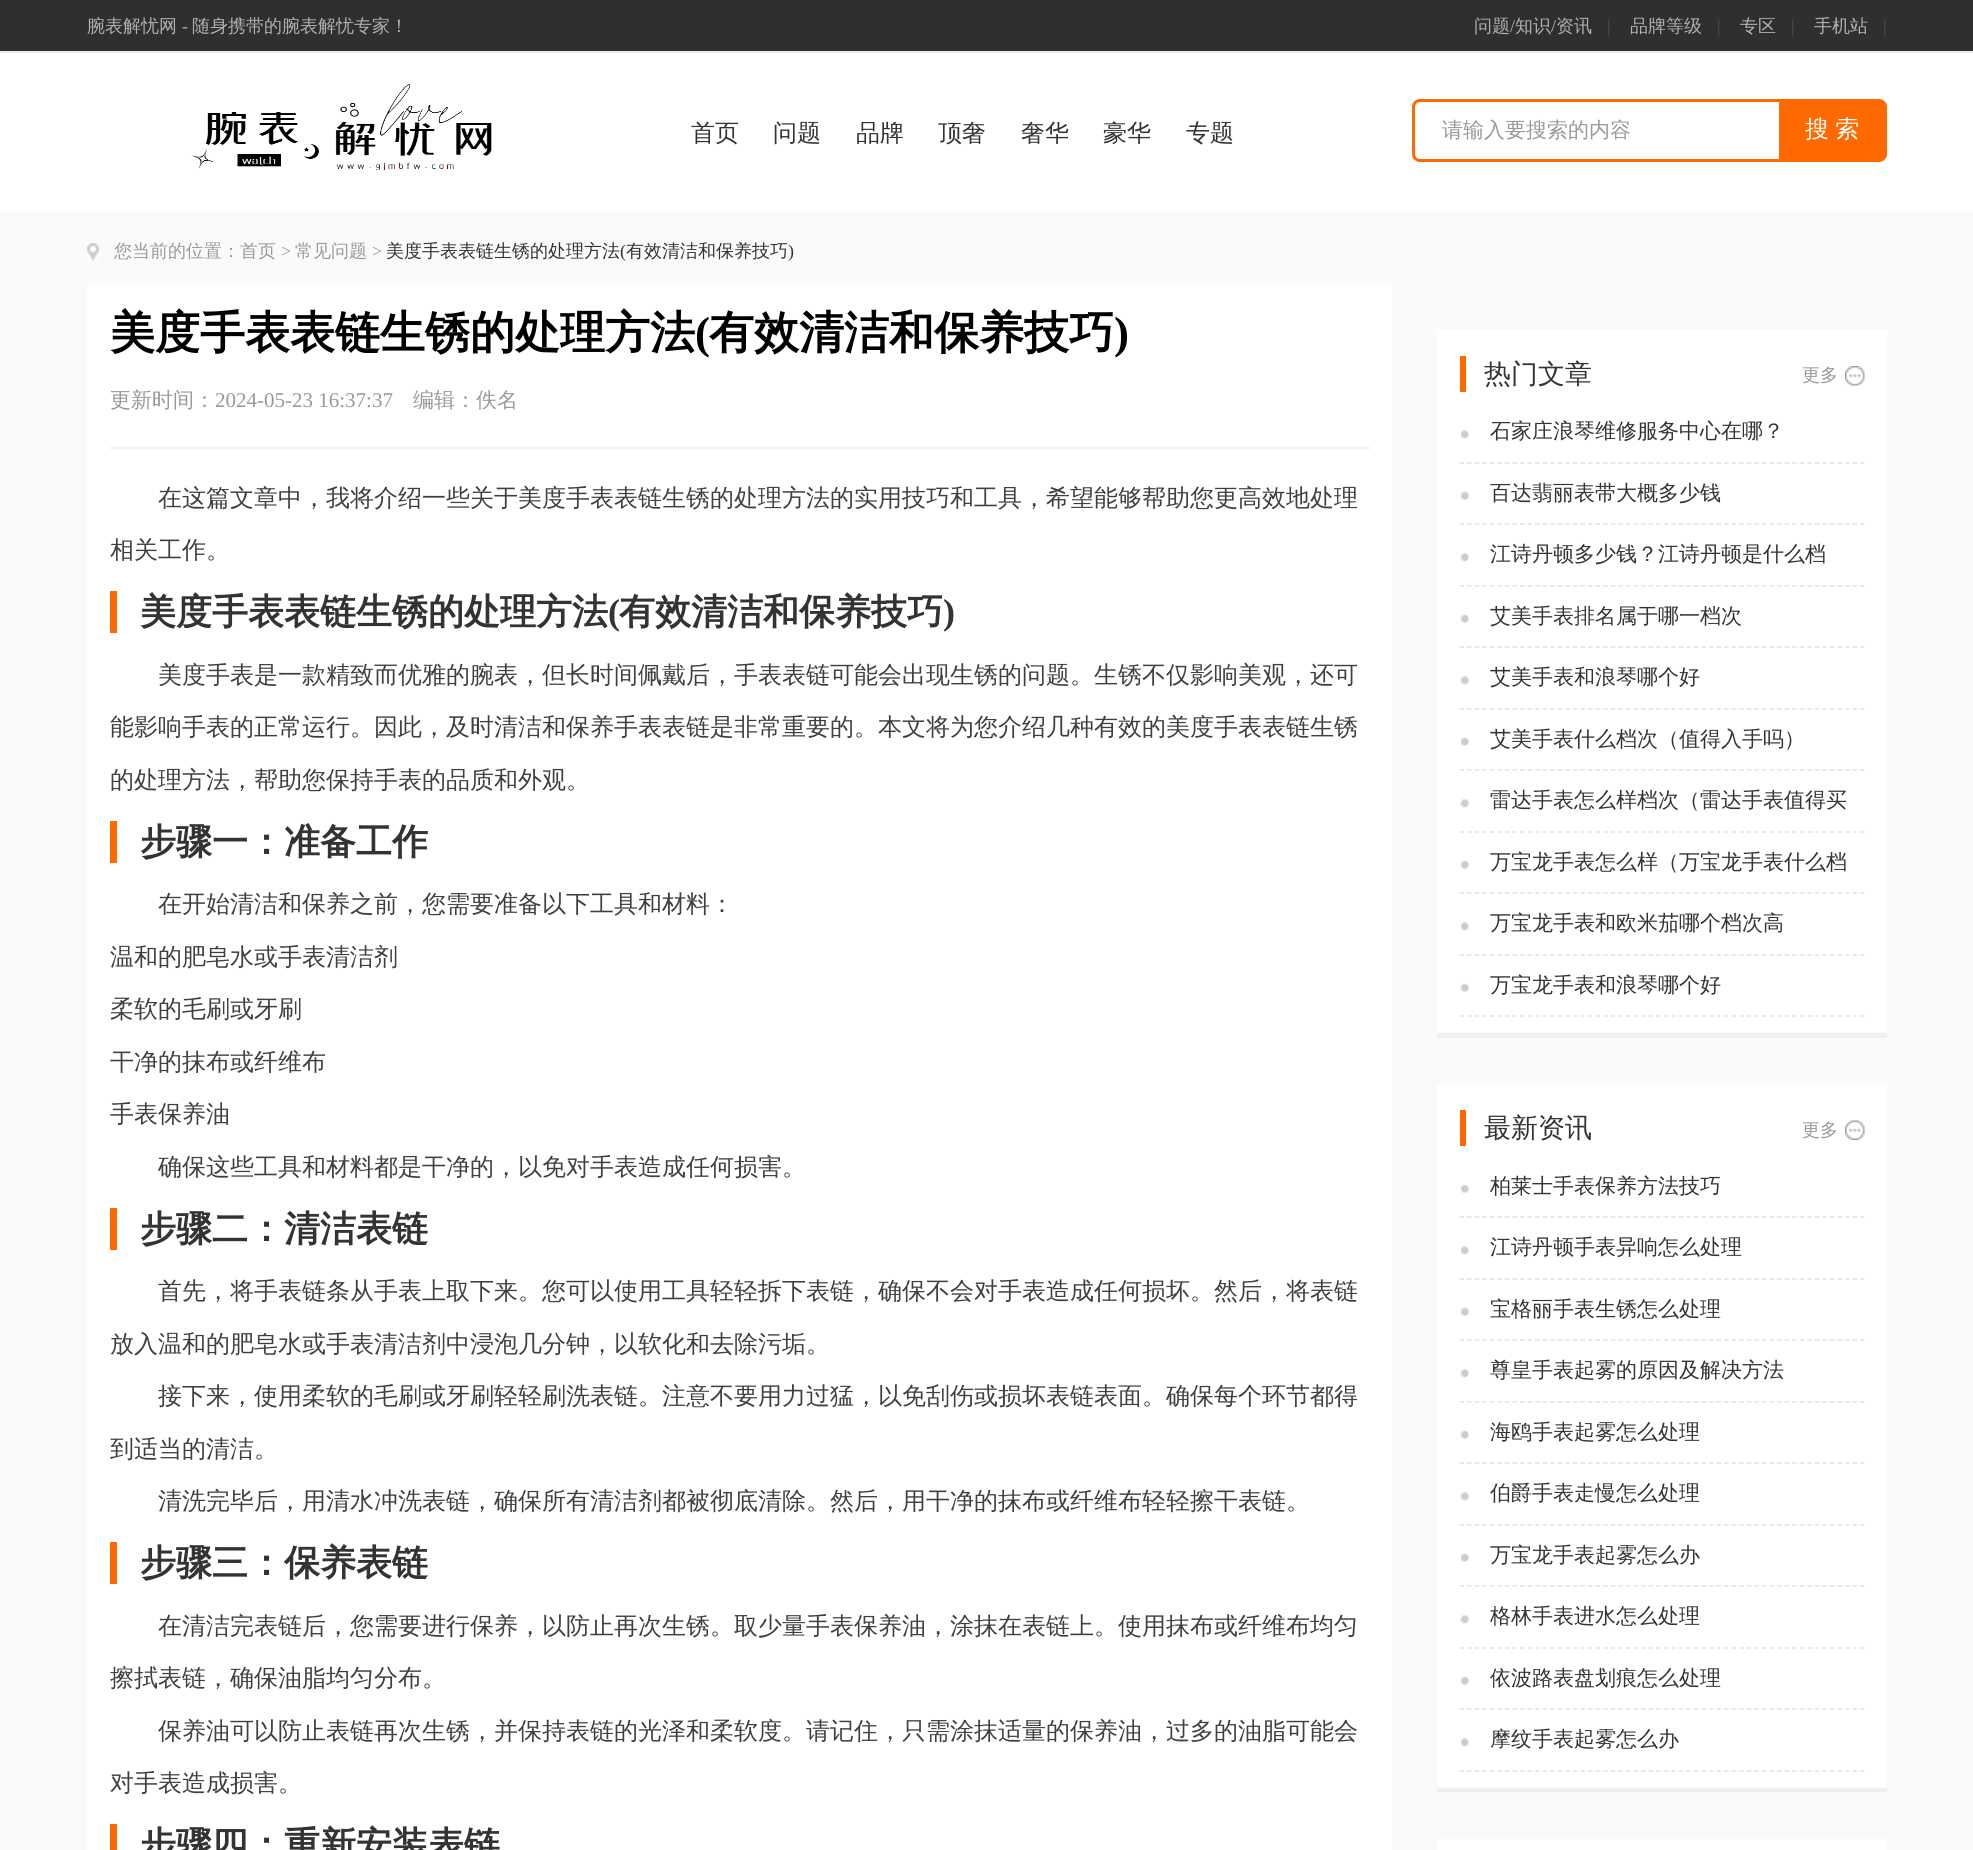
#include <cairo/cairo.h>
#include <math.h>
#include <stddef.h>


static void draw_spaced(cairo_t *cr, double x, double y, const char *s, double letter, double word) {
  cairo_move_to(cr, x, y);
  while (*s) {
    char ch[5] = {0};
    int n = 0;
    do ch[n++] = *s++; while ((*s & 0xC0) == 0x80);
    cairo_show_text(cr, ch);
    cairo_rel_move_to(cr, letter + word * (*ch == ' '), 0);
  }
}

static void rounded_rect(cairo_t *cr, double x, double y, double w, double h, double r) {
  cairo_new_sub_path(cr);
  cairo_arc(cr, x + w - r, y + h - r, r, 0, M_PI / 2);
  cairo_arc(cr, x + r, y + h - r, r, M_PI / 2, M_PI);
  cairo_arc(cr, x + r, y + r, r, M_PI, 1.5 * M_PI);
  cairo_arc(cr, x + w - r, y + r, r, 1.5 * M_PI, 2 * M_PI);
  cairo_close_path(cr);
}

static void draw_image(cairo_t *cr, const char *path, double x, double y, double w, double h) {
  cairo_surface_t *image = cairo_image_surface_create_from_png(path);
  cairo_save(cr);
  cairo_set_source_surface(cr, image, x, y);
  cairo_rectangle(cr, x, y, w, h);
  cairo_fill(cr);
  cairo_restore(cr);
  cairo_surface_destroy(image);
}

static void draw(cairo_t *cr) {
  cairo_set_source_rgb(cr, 1, 1, 1);
  cairo_paint(cr);
  cairo_set_source_rgb(cr, 47 / 255.0, 47 / 255.0, 47 / 255.0);
  cairo_rectangle(cr, 0, 0, 1973, 51);
  cairo_fill(cr);
  cairo_set_source_rgb(cr, 235 / 255.0, 235 / 255.0, 235 / 255.0);
  cairo_rectangle(cr, 0, 51, 1973, 2);
  cairo_fill(cr);
  draw_image(cr, "images/1.png", 191, 84, 301, 86);
  rounded_rect(cr, 1413.5, 100.5, 472, 60, 6.5);
  cairo_set_source_rgb(cr, 1, 105 / 255.0, 0);
  cairo_set_line_width(cr, 3);
  cairo_stroke(cr);
  cairo_rectangle(cr, 1779, 102, 105, 57);
  cairo_fill(cr);
  cairo_set_source_rgb(cr, 250 / 255.0, 250 / 255.0, 250 / 255.0);
  cairo_rectangle(cr, 0, 212, 1973, 1638);
  cairo_fill(cr);
  draw_image(cr, "images/2.png", 87, 243, 12, 18);
  cairo_set_source_rgb(cr, 1, 1, 1);
  cairo_rectangle(cr, 87, 285, 1305, 1565);
  cairo_fill(cr);
  cairo_set_source_rgb(cr, 240 / 255.0, 240 / 255.0, 240 / 255.0);
  cairo_rectangle(cr, 110, 447, 1260, 2);
  cairo_fill(cr);
  cairo_set_source_rgb(cr, 1, 105 / 255.0, 0);
  cairo_rectangle(cr, 110, 591, 7, 42);
  cairo_fill(cr);
  cairo_rectangle(cr, 110, 821, 7, 42);
  cairo_fill(cr);
  cairo_rectangle(cr, 110, 1208, 7, 42);
  cairo_fill(cr);
  cairo_rectangle(cr, 110, 1542, 7, 42);
  cairo_fill(cr);
  cairo_rectangle(cr, 110, 1824, 7, 26);
  cairo_fill(cr);
  cairo_set_source_rgb(cr, 240 / 255.0, 240 / 255.0, 240 / 255.0);
  cairo_rectangle(cr, 1437, 1033, 450, 5);
  cairo_fill(cr);
  cairo_set_source_rgb(cr, 1, 1, 1);
  cairo_rectangle(cr, 1437, 330, 450, 702);
  cairo_fill(cr);
  cairo_set_source_rgb(cr, 1, 104 / 255.0, 0);
  cairo_rectangle(cr, 1460, 356, 6, 36);
  cairo_fill(cr);
  draw_image(cr, "images/3.png", 1845, 366, 20, 20);
  cairo_new_path(cr);
  cairo_move_to(cr, 1459.5, 463);
  cairo_line_to(cr, 1864.5, 463);
  cairo_set_source_rgb(cr, 226 / 255.0, 226 / 255.0, 226 / 255.0);
  cairo_set_line_width(cr, 1.5);
  cairo_set_dash(cr, (double[]){4.5, 3.06}, 2, 0);
  cairo_stroke(cr);
  draw_image(cr, "images/4.png", 1460, 430, 9, 9);
  cairo_new_path(cr);
  cairo_move_to(cr, 1459.5, 524);
  cairo_line_to(cr, 1864.5, 524);
  cairo_stroke(cr);
  draw_image(cr, "images/5.png", 1460, 491, 9, 9);
  cairo_new_path(cr);
  cairo_move_to(cr, 1459.5, 586);
  cairo_line_to(cr, 1864.5, 586);
  cairo_stroke(cr);
  draw_image(cr, "images/4.png", 1460, 553, 9, 9);
  cairo_new_path(cr);
  cairo_move_to(cr, 1459.5, 647);
  cairo_line_to(cr, 1864.5, 647);
  cairo_stroke(cr);
  draw_image(cr, "images/5.png", 1460, 614, 9, 9);
  cairo_new_path(cr);
  cairo_move_to(cr, 1459.5, 709);
  cairo_line_to(cr, 1864.5, 709);
  cairo_stroke(cr);
  draw_image(cr, "images/4.png", 1460, 676, 9, 9);
  cairo_new_path(cr);
  cairo_move_to(cr, 1459.5, 770);
  cairo_line_to(cr, 1864.5, 770);
  cairo_stroke(cr);
  draw_image(cr, "images/5.png", 1460, 737, 9, 9);
  cairo_new_path(cr);
  cairo_move_to(cr, 1459.5, 832);
  cairo_line_to(cr, 1864.5, 832);
  cairo_stroke(cr);
  draw_image(cr, "images/4.png", 1460, 799, 9, 9);
  cairo_new_path(cr);
  cairo_move_to(cr, 1459.5, 893);
  cairo_line_to(cr, 1864.5, 893);
  cairo_stroke(cr);
  draw_image(cr, "images/5.png", 1460, 860, 9, 9);
  cairo_new_path(cr);
  cairo_move_to(cr, 1459.5, 955);
  cairo_line_to(cr, 1864.5, 955);
  cairo_stroke(cr);
  draw_image(cr, "images/4.png", 1460, 922, 9, 9);
  cairo_new_path(cr);
  cairo_move_to(cr, 1459.5, 1016);
  cairo_line_to(cr, 1864.5, 1016);
  cairo_stroke(cr);
  draw_image(cr, "images/5.png", 1460, 983, 9, 9);
  cairo_set_source_rgb(cr, 239 / 255.0, 239 / 255.0, 239 / 255.0);
  cairo_rectangle(cr, 1437, 1788, 450, 4);
  cairo_fill(cr);
  cairo_set_source_rgb(cr, 1, 1, 1);
  cairo_rectangle(cr, 1437, 1085, 450, 702);
  cairo_fill(cr);
  cairo_set_source_rgb(cr, 1, 104 / 255.0, 0);
  cairo_rectangle(cr, 1460, 1110, 6, 36);
  cairo_fill(cr);
  draw_image(cr, "images/6.png", 1845, 1120, 20, 20);
  cairo_new_path(cr);
  cairo_move_to(cr, 1459.5, 1217);
  cairo_line_to(cr, 1864.5, 1217);
  cairo_set_source_rgb(cr, 226 / 255.0, 226 / 255.0, 226 / 255.0);
  cairo_stroke(cr);
  draw_image(cr, "images/5.png", 1460, 1184, 9, 9);
  cairo_new_path(cr);
  cairo_move_to(cr, 1459.5, 1279);
  cairo_line_to(cr, 1864.5, 1279);
  cairo_stroke(cr);
  draw_image(cr, "images/4.png", 1460, 1246, 9, 9);
  cairo_new_path(cr);
  cairo_move_to(cr, 1459.5, 1340);
  cairo_line_to(cr, 1864.5, 1340);
  cairo_stroke(cr);
  draw_image(cr, "images/5.png", 1460, 1307, 9, 9);
  cairo_new_path(cr);
  cairo_move_to(cr, 1459.5, 1402);
  cairo_line_to(cr, 1864.5, 1402);
  cairo_stroke(cr);
  draw_image(cr, "images/4.png", 1460, 1369, 9, 9);
  cairo_new_path(cr);
  cairo_move_to(cr, 1459.5, 1463);
  cairo_line_to(cr, 1864.5, 1463);
  cairo_stroke(cr);
  draw_image(cr, "images/5.png", 1460, 1430, 9, 9);
  cairo_new_path(cr);
  cairo_move_to(cr, 1459.5, 1525);
  cairo_line_to(cr, 1864.5, 1525);
  cairo_stroke(cr);
  draw_image(cr, "images/4.png", 1460, 1492, 9, 9);
  cairo_new_path(cr);
  cairo_move_to(cr, 1459.5, 1586);
  cairo_line_to(cr, 1864.5, 1586);
  cairo_stroke(cr);
  draw_image(cr, "images/5.png", 1460, 1553, 9, 9);
  cairo_new_path(cr);
  cairo_move_to(cr, 1459.5, 1648);
  cairo_line_to(cr, 1864.5, 1648);
  cairo_stroke(cr);
  draw_image(cr, "images/4.png", 1460, 1615, 9, 9);
  cairo_new_path(cr);
  cairo_move_to(cr, 1459.5, 1709);
  cairo_line_to(cr, 1864.5, 1709);
  cairo_stroke(cr);
  draw_image(cr, "images/5.png", 1460, 1676, 9, 9);
  cairo_new_path(cr);
  cairo_move_to(cr, 1459.5, 1771);
  cairo_line_to(cr, 1864.5, 1771);
  cairo_stroke(cr);
  draw_image(cr, "images/4.png", 1460, 1738, 9, 9);
  cairo_set_source_rgb(cr, 1, 1, 1);
  cairo_rectangle(cr, 1437, 1839, 450, 11);
  cairo_fill(cr);
  cairo_select_font_face(cr, "WenQuanYi Zen Hei Medium", CAIRO_FONT_SLANT_NORMAL, CAIRO_FONT_WEIGHT_NORMAL);
  cairo_set_font_size(cr, 18);
  cairo_set_source_rgb(cr, 176 / 255.0, 176 / 255.0, 176 / 255.0);
  cairo_move_to(cr, 87, 32);
  cairo_show_text(cr, "腕表解忧网");
  cairo_select_font_face(cr, "Liberation Serif", CAIRO_FONT_SLANT_NORMAL, CAIRO_FONT_WEIGHT_NORMAL);
  cairo_move_to(cr, 182, 32);
  cairo_show_text(cr, "-");
  cairo_select_font_face(cr, "WenQuanYi Zen Hei Medium", CAIRO_FONT_SLANT_NORMAL, CAIRO_FONT_WEIGHT_NORMAL);
  cairo_move_to(cr, 192, 32);
  cairo_show_text(cr, "随身携带的腕表解忧专家！");
  cairo_move_to(cr, 1474, 32);
  cairo_show_text(cr, "问题");
  cairo_select_font_face(cr, "Liberation Serif", CAIRO_FONT_SLANT_NORMAL, CAIRO_FONT_WEIGHT_NORMAL);
  cairo_move_to(cr, 1510, 32);
  cairo_show_text(cr, "/");
  cairo_select_font_face(cr, "WenQuanYi Zen Hei Medium", CAIRO_FONT_SLANT_NORMAL, CAIRO_FONT_WEIGHT_NORMAL);
  cairo_move_to(cr, 1515, 32);
  cairo_show_text(cr, "知识");
  cairo_select_font_face(cr, "Liberation Serif", CAIRO_FONT_SLANT_NORMAL, CAIRO_FONT_WEIGHT_NORMAL);
  cairo_move_to(cr, 1551, 32);
  cairo_show_text(cr, "/");
  cairo_select_font_face(cr, "WenQuanYi Zen Hei Medium", CAIRO_FONT_SLANT_NORMAL, CAIRO_FONT_WEIGHT_NORMAL);
  cairo_move_to(cr, 1556, 32);
  cairo_show_text(cr, "资讯");
  cairo_select_font_face(cr, "Liberation Serif", CAIRO_FONT_SLANT_NORMAL, CAIRO_FONT_WEIGHT_NORMAL);
  cairo_set_source_rgb(cr, 81 / 255.0, 81 / 255.0, 81 / 255.0);
  cairo_move_to(cr, 1607, 32);
  cairo_show_text(cr, "|");
  cairo_select_font_face(cr, "WenQuanYi Zen Hei Medium", CAIRO_FONT_SLANT_NORMAL, CAIRO_FONT_WEIGHT_NORMAL);
  cairo_set_source_rgb(cr, 176 / 255.0, 176 / 255.0, 176 / 255.0);
  cairo_move_to(cr, 1630, 32);
  cairo_show_text(cr, "品牌等级");
  cairo_select_font_face(cr, "Liberation Serif", CAIRO_FONT_SLANT_NORMAL, CAIRO_FONT_WEIGHT_NORMAL);
  cairo_set_source_rgb(cr, 81 / 255.0, 81 / 255.0, 81 / 255.0);
  cairo_move_to(cr, 1717, 32);
  cairo_show_text(cr, "|");
  cairo_select_font_face(cr, "WenQuanYi Zen Hei Medium", CAIRO_FONT_SLANT_NORMAL, CAIRO_FONT_WEIGHT_NORMAL);
  cairo_set_source_rgb(cr, 176 / 255.0, 176 / 255.0, 176 / 255.0);
  cairo_move_to(cr, 1740, 32);
  cairo_show_text(cr, "专区");
  cairo_select_font_face(cr, "Liberation Serif", CAIRO_FONT_SLANT_NORMAL, CAIRO_FONT_WEIGHT_NORMAL);
  cairo_set_source_rgb(cr, 81 / 255.0, 81 / 255.0, 81 / 255.0);
  cairo_move_to(cr, 1791, 32);
  cairo_show_text(cr, "|");
  cairo_select_font_face(cr, "WenQuanYi Zen Hei Medium", CAIRO_FONT_SLANT_NORMAL, CAIRO_FONT_WEIGHT_NORMAL);
  cairo_set_source_rgb(cr, 176 / 255.0, 176 / 255.0, 176 / 255.0);
  cairo_move_to(cr, 1814, 32);
  cairo_show_text(cr, "手机站");
  cairo_select_font_face(cr, "Liberation Serif", CAIRO_FONT_SLANT_NORMAL, CAIRO_FONT_WEIGHT_NORMAL);
  cairo_set_source_rgb(cr, 81 / 255.0, 81 / 255.0, 81 / 255.0);
  cairo_move_to(cr, 1883, 32);
  cairo_show_text(cr, "|");
  cairo_select_font_face(cr, "WenQuanYi Zen Hei Medium", CAIRO_FONT_SLANT_NORMAL, CAIRO_FONT_WEIGHT_NORMAL);
  cairo_set_font_size(cr, 24);
  cairo_set_source_rgb(cr, 51 / 255.0, 51 / 255.0, 51 / 255.0);
  cairo_move_to(cr, 691, 141);
  cairo_show_text(cr, "首页");
  cairo_move_to(cr, 773, 141);
  cairo_show_text(cr, "问题");
  cairo_move_to(cr, 856, 141);
  cairo_show_text(cr, "品牌");
  cairo_move_to(cr, 938, 141);
  cairo_show_text(cr, "顶奢");
  cairo_move_to(cr, 1021, 141);
  cairo_show_text(cr, "奢华");
  cairo_move_to(cr, 1103, 141);
  cairo_show_text(cr, "豪华");
  cairo_move_to(cr, 1186, 141);
  cairo_show_text(cr, "专题");
  cairo_set_font_size(cr, 21);
  cairo_set_source_rgb(cr, 153 / 255.0, 153 / 255.0, 153 / 255.0);
  cairo_move_to(cr, 1442, 137);
  cairo_show_text(cr, "请输入要搜索的内容");
  cairo_set_font_size(cr, 24);
  cairo_set_source_rgb(cr, 1, 1, 1);
  draw_spaced(cr, 1805, 137, "搜 索", 0, -1);
  cairo_set_font_size(cr, 18);
  cairo_set_source_rgb(cr, 153 / 255.0, 153 / 255.0, 153 / 255.0);
  cairo_move_to(cr, 114, 257);
  cairo_show_text(cr, "您当前的位置：首页");
  cairo_select_font_face(cr, "Liberation Serif", CAIRO_FONT_SLANT_NORMAL, CAIRO_FONT_WEIGHT_NORMAL);
  cairo_move_to(cr, 281, 257);
  cairo_show_text(cr, ">");
  cairo_select_font_face(cr, "WenQuanYi Zen Hei Medium", CAIRO_FONT_SLANT_NORMAL, CAIRO_FONT_WEIGHT_NORMAL);
  cairo_move_to(cr, 295, 257);
  cairo_show_text(cr, "常见问题");
  cairo_select_font_face(cr, "Liberation Serif", CAIRO_FONT_SLANT_NORMAL, CAIRO_FONT_WEIGHT_NORMAL);
  cairo_move_to(cr, 372, 257);
  cairo_show_text(cr, ">");
  cairo_select_font_face(cr, "WenQuanYi Zen Hei Medium", CAIRO_FONT_SLANT_NORMAL, CAIRO_FONT_WEIGHT_NORMAL);
  cairo_set_source_rgb(cr, 51 / 255.0, 51 / 255.0, 51 / 255.0);
  cairo_move_to(cr, 386, 257);
  cairo_show_text(cr, "美度手表表链生锈的处理方法");
  cairo_select_font_face(cr, "Liberation Serif", CAIRO_FONT_SLANT_NORMAL, CAIRO_FONT_WEIGHT_NORMAL);
  cairo_move_to(cr, 620, 257);
  cairo_show_text(cr, "(");
  cairo_select_font_face(cr, "WenQuanYi Zen Hei Medium", CAIRO_FONT_SLANT_NORMAL, CAIRO_FONT_WEIGHT_NORMAL);
  cairo_move_to(cr, 626, 257);
  cairo_show_text(cr, "有效清洁和保养技巧");
  cairo_select_font_face(cr, "Liberation Serif", CAIRO_FONT_SLANT_NORMAL, CAIRO_FONT_WEIGHT_NORMAL);
  cairo_move_to(cr, 788, 257);
  cairo_show_text(cr, ")");
  cairo_select_font_face(cr, "WenQuanYi Zen Hei", CAIRO_FONT_SLANT_NORMAL, CAIRO_FONT_WEIGHT_BOLD);
  cairo_set_font_size(cr, 45);
  cairo_set_source_rgb(cr, 0, 0, 0);
  cairo_move_to(cr, 110, 348);
  cairo_show_text(cr, "美度手表表链生锈的处理方法");
  cairo_select_font_face(cr, "Liberation Serif", CAIRO_FONT_SLANT_NORMAL, CAIRO_FONT_WEIGHT_BOLD);
  cairo_move_to(cr, 695, 348);
  cairo_show_text(cr, "(");
  cairo_select_font_face(cr, "WenQuanYi Zen Hei", CAIRO_FONT_SLANT_NORMAL, CAIRO_FONT_WEIGHT_BOLD);
  cairo_move_to(cr, 709, 348);
  cairo_show_text(cr, "有效清洁和保养技巧");
  cairo_select_font_face(cr, "Liberation Serif", CAIRO_FONT_SLANT_NORMAL, CAIRO_FONT_WEIGHT_BOLD);
  cairo_move_to(cr, 1114, 348);
  cairo_show_text(cr, ")");
  cairo_select_font_face(cr, "WenQuanYi Zen Hei Medium", CAIRO_FONT_SLANT_NORMAL, CAIRO_FONT_WEIGHT_NORMAL);
  cairo_set_font_size(cr, 21);
  cairo_set_source_rgb(cr, 153 / 255.0, 153 / 255.0, 153 / 255.0);
  cairo_move_to(cr, 110, 407);
  cairo_show_text(cr, "更新时间：");
  cairo_select_font_face(cr, "Liberation Serif", CAIRO_FONT_SLANT_NORMAL, CAIRO_FONT_WEIGHT_NORMAL);
  cairo_move_to(cr, 215, 407);
  cairo_show_text(cr, "2024-05-23 16:37:37");
  cairo_select_font_face(cr, "WenQuanYi Zen Hei Medium", CAIRO_FONT_SLANT_NORMAL, CAIRO_FONT_WEIGHT_NORMAL);
  cairo_move_to(cr, 413, 407);
  cairo_show_text(cr, "编辑：佚名");
  cairo_set_font_size(cr, 24);
  cairo_set_source_rgb(cr, 63 / 255.0, 63 / 255.0, 63 / 255.0);
  cairo_move_to(cr, 158, 506);
  cairo_show_text(cr, "在这篇文章中，我将介绍一些关于美度手表表链生锈的处理方法的实用技巧和工具，希望能够帮助您更高效地处理");
  cairo_move_to(cr, 110, 558);
  cairo_show_text(cr, "相关工作。");
  cairo_select_font_face(cr, "WenQuanYi Zen Hei", CAIRO_FONT_SLANT_NORMAL, CAIRO_FONT_WEIGHT_BOLD);
  cairo_set_font_size(cr, 36);
  cairo_set_source_rgb(cr, 51 / 255.0, 51 / 255.0, 51 / 255.0);
  cairo_move_to(cr, 140, 624);
  cairo_show_text(cr, "美度手表表链生锈的处理方法");
  cairo_select_font_face(cr, "Liberation Serif", CAIRO_FONT_SLANT_NORMAL, CAIRO_FONT_WEIGHT_BOLD);
  cairo_move_to(cr, 608, 624);
  cairo_show_text(cr, "(");
  cairo_select_font_face(cr, "WenQuanYi Zen Hei", CAIRO_FONT_SLANT_NORMAL, CAIRO_FONT_WEIGHT_BOLD);
  cairo_move_to(cr, 619, 624);
  cairo_show_text(cr, "有效清洁和保养技巧");
  cairo_select_font_face(cr, "Liberation Serif", CAIRO_FONT_SLANT_NORMAL, CAIRO_FONT_WEIGHT_BOLD);
  cairo_move_to(cr, 943, 624);
  cairo_show_text(cr, ")");
  cairo_select_font_face(cr, "WenQuanYi Zen Hei Medium", CAIRO_FONT_SLANT_NORMAL, CAIRO_FONT_WEIGHT_NORMAL);
  cairo_set_font_size(cr, 24);
  cairo_set_source_rgb(cr, 63 / 255.0, 63 / 255.0, 63 / 255.0);
  cairo_move_to(cr, 158, 683);
  cairo_show_text(cr, "美度手表是一款精致而优雅的腕表，但长时间佩戴后，手表表链可能会出现生锈的问题。生锈不仅影响美观，还可");
  cairo_move_to(cr, 110, 735);
  cairo_show_text(cr, "能影响手表的正常运行。因此，及时清洁和保养手表表链是非常重要的。本文将为您介绍几种有效的美度手表表链生锈");
  cairo_move_to(cr, 110, 788);
  cairo_show_text(cr, "的处理方法，帮助您保持手表的品质和外观。");
  cairo_select_font_face(cr, "WenQuanYi Zen Hei", CAIRO_FONT_SLANT_NORMAL, CAIRO_FONT_WEIGHT_BOLD);
  cairo_set_font_size(cr, 36);
  cairo_set_source_rgb(cr, 51 / 255.0, 51 / 255.0, 51 / 255.0);
  cairo_move_to(cr, 140, 854);
  cairo_show_text(cr, "步骤一：准备工作");
  cairo_select_font_face(cr, "WenQuanYi Zen Hei Medium", CAIRO_FONT_SLANT_NORMAL, CAIRO_FONT_WEIGHT_NORMAL);
  cairo_set_font_size(cr, 24);
  cairo_set_source_rgb(cr, 63 / 255.0, 63 / 255.0, 63 / 255.0);
  cairo_move_to(cr, 158, 912);
  cairo_show_text(cr, "在开始清洁和保养之前，您需要准备以下工具和材料：");
  cairo_move_to(cr, 110, 965);
  cairo_show_text(cr, "温和的肥皂水或手表清洁剂");
  cairo_move_to(cr, 110, 1017);
  cairo_show_text(cr, "柔软的毛刷或牙刷");
  cairo_move_to(cr, 110, 1070);
  cairo_show_text(cr, "干净的抹布或纤维布");
  cairo_move_to(cr, 110, 1122);
  cairo_show_text(cr, "手表保养油");
  cairo_move_to(cr, 158, 1175);
  cairo_show_text(cr, "确保这些工具和材料都是干净的，以免对手表造成任何损害。");
  cairo_select_font_face(cr, "WenQuanYi Zen Hei", CAIRO_FONT_SLANT_NORMAL, CAIRO_FONT_WEIGHT_BOLD);
  cairo_set_font_size(cr, 36);
  cairo_set_source_rgb(cr, 51 / 255.0, 51 / 255.0, 51 / 255.0);
  cairo_move_to(cr, 140, 1241);
  cairo_show_text(cr, "步骤二：清洁表链");
  cairo_select_font_face(cr, "WenQuanYi Zen Hei Medium", CAIRO_FONT_SLANT_NORMAL, CAIRO_FONT_WEIGHT_NORMAL);
  cairo_set_font_size(cr, 24);
  cairo_set_source_rgb(cr, 63 / 255.0, 63 / 255.0, 63 / 255.0);
  cairo_move_to(cr, 158, 1299);
  cairo_show_text(cr, "首先，将手表链条从手表上取下来。您可以使用工具轻轻拆下表链，确保不会对手表造成任何损坏。然后，将表链");
  cairo_move_to(cr, 110, 1352);
  cairo_show_text(cr, "放入温和的肥皂水或手表清洁剂中浸泡几分钟，以软化和去除污垢。");
  cairo_move_to(cr, 158, 1404);
  cairo_show_text(cr, "接下来，使用柔软的毛刷或牙刷轻轻刷洗表链。注意不要用力过猛，以免刮伤或损坏表链表面。确保每个环节都得");
  cairo_move_to(cr, 110, 1457);
  cairo_show_text(cr, "到适当的清洁。");
  cairo_move_to(cr, 158, 1509);
  cairo_show_text(cr, "清洗完毕后，用清水冲洗表链，确保所有清洁剂都被彻底清除。然后，用干净的抹布或纤维布轻轻擦干表链。");
  cairo_select_font_face(cr, "WenQuanYi Zen Hei", CAIRO_FONT_SLANT_NORMAL, CAIRO_FONT_WEIGHT_BOLD);
  cairo_set_font_size(cr, 36);
  cairo_set_source_rgb(cr, 51 / 255.0, 51 / 255.0, 51 / 255.0);
  cairo_move_to(cr, 140, 1575);
  cairo_show_text(cr, "步骤三：保养表链");
  cairo_select_font_face(cr, "WenQuanYi Zen Hei Medium", CAIRO_FONT_SLANT_NORMAL, CAIRO_FONT_WEIGHT_NORMAL);
  cairo_set_font_size(cr, 24);
  cairo_set_source_rgb(cr, 63 / 255.0, 63 / 255.0, 63 / 255.0);
  cairo_move_to(cr, 158, 1634);
  cairo_show_text(cr, "在清洁完表链后，您需要进行保养，以防止再次生锈。取少量手表保养油，涂抹在表链上。使用抹布或纤维布均匀");
  cairo_move_to(cr, 110, 1686);
  cairo_show_text(cr, "擦拭表链，确保油脂均匀分布。");
  cairo_move_to(cr, 158, 1739);
  cairo_show_text(cr, "保养油可以防止表链再次生锈，并保持表链的光泽和柔软度。请记住，只需涂抹适量的保养油，过多的油脂可能会");
  cairo_move_to(cr, 110, 1791);
  cairo_show_text(cr, "对手表造成损害。");
  cairo_select_font_face(cr, "WenQuanYi Zen Hei", CAIRO_FONT_SLANT_NORMAL, CAIRO_FONT_WEIGHT_BOLD);
  cairo_set_font_size(cr, 36);
  cairo_set_source_rgb(cr, 51 / 255.0, 51 / 255.0, 51 / 255.0);
  cairo_move_to(cr, 140, 1857);
  cairo_show_text(cr, "步骤四：重新安装表链");
  cairo_select_font_face(cr, "WenQuanYi Zen Hei Medium", CAIRO_FONT_SLANT_NORMAL, CAIRO_FONT_WEIGHT_NORMAL);
  cairo_set_font_size(cr, 27);
  cairo_move_to(cr, 1484, 383);
  cairo_show_text(cr, "热门文章");
  cairo_set_font_size(cr, 18);
  cairo_set_source_rgb(cr, 153 / 255.0, 153 / 255.0, 153 / 255.0);
  cairo_move_to(cr, 1802, 381);
  cairo_show_text(cr, "更多");
  cairo_set_font_size(cr, 21);
  cairo_set_source_rgb(cr, 51 / 255.0, 51 / 255.0, 51 / 255.0);
  cairo_move_to(cr, 1490, 438);
  cairo_show_text(cr, "石家庄浪琴维修服务中心在哪？");
  cairo_move_to(cr, 1490, 500);
  cairo_show_text(cr, "百达翡丽表带大概多少钱");
  cairo_move_to(cr, 1490, 561);
  cairo_show_text(cr, "江诗丹顿多少钱？江诗丹顿是什么档");
  cairo_move_to(cr, 1490, 623);
  cairo_show_text(cr, "艾美手表排名属于哪一档次");
  cairo_move_to(cr, 1490, 684);
  cairo_show_text(cr, "艾美手表和浪琴哪个好");
  cairo_move_to(cr, 1490, 746);
  cairo_show_text(cr, "艾美手表什么档次（值得入手吗）");
  cairo_move_to(cr, 1490, 807);
  cairo_show_text(cr, "雷达手表怎么样档次（雷达手表值得买");
  cairo_move_to(cr, 1490, 869);
  cairo_show_text(cr, "万宝龙手表怎么样（万宝龙手表什么档");
  cairo_move_to(cr, 1490, 930);
  cairo_show_text(cr, "万宝龙手表和欧米茄哪个档次高");
  cairo_move_to(cr, 1490, 992);
  cairo_show_text(cr, "万宝龙手表和浪琴哪个好");
  cairo_set_font_size(cr, 27);
  cairo_move_to(cr, 1484, 1137);
  cairo_show_text(cr, "最新资讯");
  cairo_set_font_size(cr, 18);
  cairo_set_source_rgb(cr, 153 / 255.0, 153 / 255.0, 153 / 255.0);
  cairo_move_to(cr, 1802, 1136);
  cairo_show_text(cr, "更多");
  cairo_set_font_size(cr, 21);
  cairo_set_source_rgb(cr, 51 / 255.0, 51 / 255.0, 51 / 255.0);
  cairo_move_to(cr, 1490, 1193);
  cairo_show_text(cr, "柏莱士手表保养方法技巧");
  cairo_move_to(cr, 1490, 1254);
  cairo_show_text(cr, "江诗丹顿手表异响怎么处理");
  cairo_move_to(cr, 1490, 1316);
  cairo_show_text(cr, "宝格丽手表生锈怎么处理");
  cairo_move_to(cr, 1490, 1377);
  cairo_show_text(cr, "尊皇手表起雾的原因及解决方法");
  cairo_move_to(cr, 1490, 1439);
  cairo_show_text(cr, "海鸥手表起雾怎么处理");
  cairo_move_to(cr, 1490, 1500);
  cairo_show_text(cr, "伯爵手表走慢怎么处理");
  cairo_move_to(cr, 1490, 1562);
  cairo_show_text(cr, "万宝龙手表起雾怎么办");
  cairo_move_to(cr, 1490, 1623);
  cairo_show_text(cr, "格林手表进水怎么处理");
  cairo_move_to(cr, 1490, 1685);
  cairo_show_text(cr, "依波路表盘划痕怎么处理");
  cairo_move_to(cr, 1490, 1746);
  cairo_show_text(cr, "摩纹手表起雾怎么办");
}

int main(void) {
  cairo_surface_t *surface = cairo_image_surface_create(CAIRO_FORMAT_RGB24, 1973, 1850);
  cairo_t *cr = cairo_create(surface);
  cairo_font_options_t *options = cairo_font_options_create();
  cairo_font_options_set_hint_metrics(options, CAIRO_HINT_METRICS_OFF);
  cairo_font_options_set_hint_style(options, CAIRO_HINT_STYLE_NONE);
  cairo_set_font_options(cr, options);
  cairo_set_miter_limit(cr, 4);
  draw(cr);
  cairo_surface_write_to_png(surface, "out.png");
  cairo_font_options_destroy(options);
  cairo_destroy(cr);
  cairo_surface_destroy(surface);
  return 0;
}
